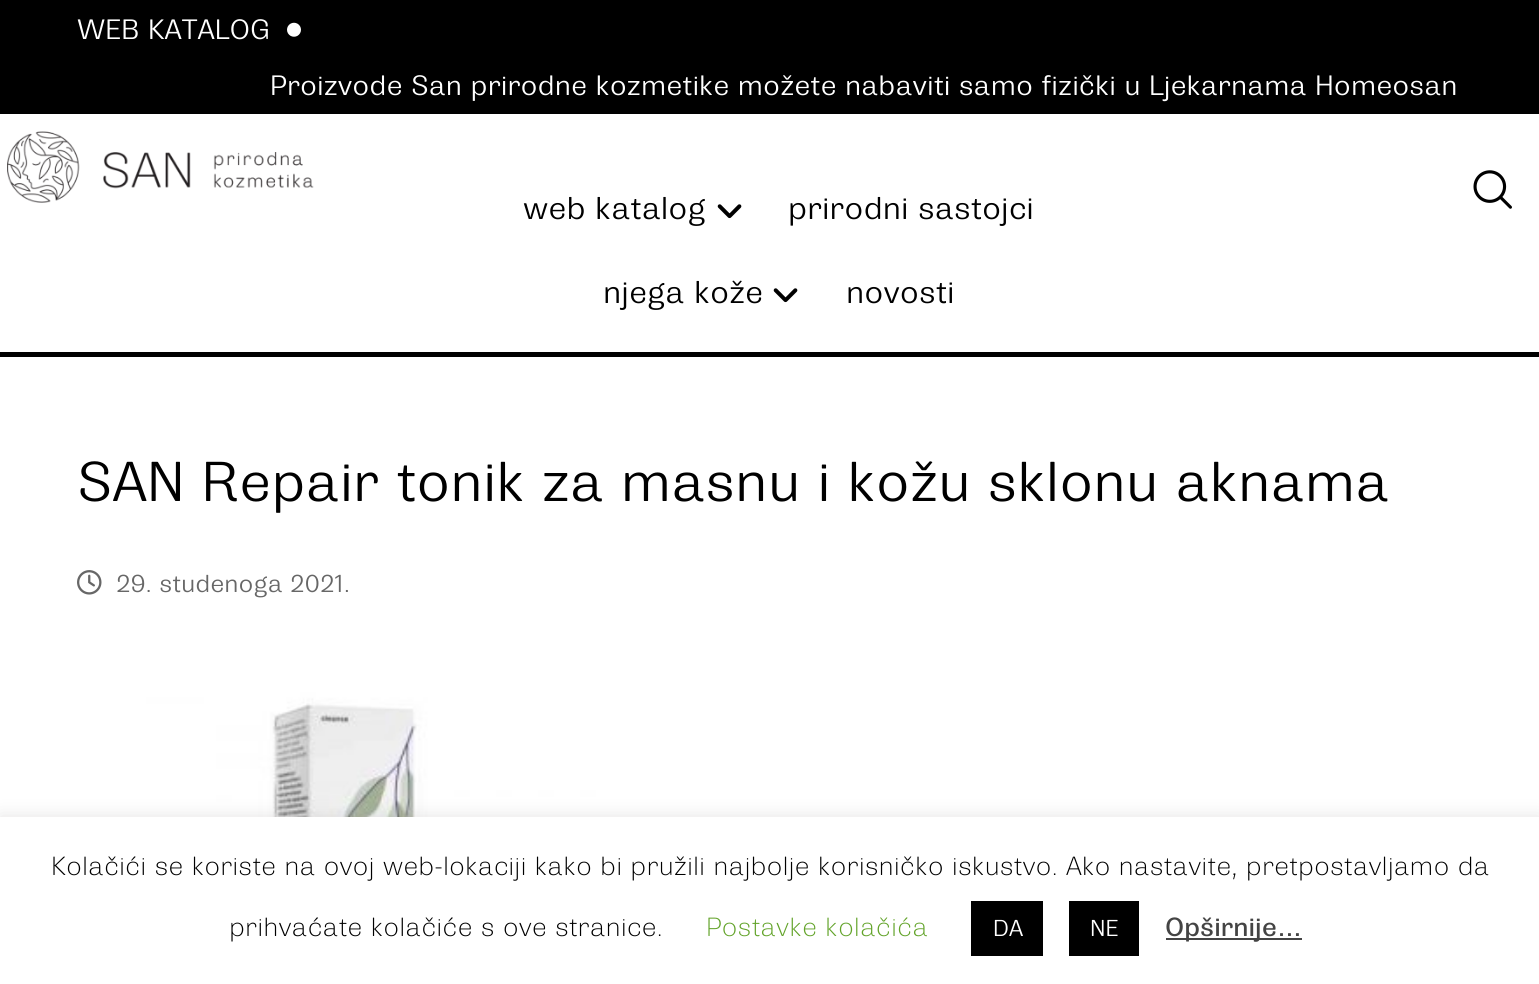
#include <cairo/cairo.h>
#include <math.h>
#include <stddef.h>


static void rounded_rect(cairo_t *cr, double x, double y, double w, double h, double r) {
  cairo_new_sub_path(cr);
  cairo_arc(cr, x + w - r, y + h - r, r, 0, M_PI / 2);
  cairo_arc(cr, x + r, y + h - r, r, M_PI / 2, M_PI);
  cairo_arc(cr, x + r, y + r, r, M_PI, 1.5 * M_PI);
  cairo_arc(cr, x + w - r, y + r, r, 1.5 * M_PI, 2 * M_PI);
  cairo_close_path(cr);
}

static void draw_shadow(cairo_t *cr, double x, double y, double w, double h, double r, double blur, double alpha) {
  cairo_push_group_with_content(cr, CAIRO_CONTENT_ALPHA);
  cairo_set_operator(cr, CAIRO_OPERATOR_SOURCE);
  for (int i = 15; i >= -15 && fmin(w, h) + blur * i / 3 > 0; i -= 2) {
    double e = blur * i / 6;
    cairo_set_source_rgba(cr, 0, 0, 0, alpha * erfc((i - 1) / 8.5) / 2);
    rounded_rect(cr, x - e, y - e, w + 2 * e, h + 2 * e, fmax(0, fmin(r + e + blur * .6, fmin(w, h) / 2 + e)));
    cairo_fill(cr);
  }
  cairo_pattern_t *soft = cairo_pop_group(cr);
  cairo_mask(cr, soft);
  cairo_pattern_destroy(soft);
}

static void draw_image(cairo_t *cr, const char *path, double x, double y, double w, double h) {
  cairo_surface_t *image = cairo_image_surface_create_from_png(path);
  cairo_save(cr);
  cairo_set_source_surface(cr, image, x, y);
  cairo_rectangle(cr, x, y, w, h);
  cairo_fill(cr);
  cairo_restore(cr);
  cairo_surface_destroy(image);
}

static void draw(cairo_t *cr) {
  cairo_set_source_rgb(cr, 1, 1, 1);
  cairo_paint(cr);
  cairo_set_source_rgb(cr, 0, 0, 0);
  cairo_rectangle(cr, 0, 0, 1539, 114);
  cairo_fill(cr);
  draw_image(cr, "images/1.png", 287, 22, 14, 15);
  cairo_rectangle(cr, 0, 352, 1539, 5);
  cairo_fill(cr);
  draw_image(cr, "images/2.png", 7, 131, 307, 72);
  draw_image(cr, "images/3.png", 1473, 170, 39, 39);
  draw_image(cr, "images/4.png", 717, 204, 25, 15);
  draw_image(cr, "images/4.png", 773, 288, 25, 15);
  draw_image(cr, "images/5.png", 77, 570, 25, 25);
  draw_image(cr, "images/6.png", 77, 656, 525, 161);
  cairo_set_source_rgb(cr, 172 / 255.0, 171 / 255.0, 171 / 255.0);
  draw_shadow(cr, 0, 816, 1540, 168, 0, 9, 0.3);
  cairo_set_source_rgb(cr, 1, 1, 1);
  cairo_rectangle(cr, 0, 817, 1539, 167);
  cairo_fill(cr);
  cairo_set_source_rgb(cr, 0, 0, 0);
  cairo_rectangle(cr, 971, 901, 72, 55);
  cairo_fill(cr);
  cairo_rectangle(cr, 1069, 901, 70, 55);
  cairo_fill(cr);
  cairo_set_source_rgb(cr, 68 / 255.0, 68 / 255.0, 68 / 255.0);
  cairo_rectangle(cr, 1166, 938, 136, 2);
  cairo_fill(cr);
  cairo_select_font_face(cr, "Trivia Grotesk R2", CAIRO_FONT_SLANT_NORMAL, CAIRO_FONT_WEIGHT_NORMAL);
  cairo_set_font_size(cr, 28);
  cairo_set_source_rgb(cr, 1, 1, 1);
  cairo_move_to(cr, 77, 39);
  cairo_show_text(cr, "WEB KATALOG");
  cairo_move_to(cr, 270, 95);
  cairo_show_text(cr, "Proizvode San prirodne kozmetike možete nabaviti samo fizički u Ljekarnama Homeosan");
  cairo_set_font_size(cr, 31.5);
  cairo_set_source_rgb(cr, 0, 0, 0);
  cairo_move_to(cr, 523, 219);
  cairo_show_text(cr, "web katalog");
  cairo_move_to(cr, 788, 219);
  cairo_show_text(cr, "prirodni sastojci");
  cairo_move_to(cr, 603, 303);
  cairo_show_text(cr, "njega kože");
  cairo_move_to(cr, 846, 303);
  cairo_show_text(cr, "novosti");
  cairo_set_font_size(cr, 56);
  cairo_move_to(cr, 77, 501);
  cairo_show_text(cr, "SAN Repair tonik za masnu i kožu sklonu aknama");
  cairo_set_font_size(cr, 24.5);
  cairo_set_source_rgb(cr, 103 / 255.0, 103 / 255.0, 103 / 255.0);
  cairo_move_to(cr, 116, 592);
  cairo_show_text(cr, "29. studenoga 2021.");
  cairo_select_font_face(cr, "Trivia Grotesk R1", CAIRO_FONT_SLANT_NORMAL, CAIRO_FONT_WEIGHT_NORMAL);
  cairo_set_font_size(cr, 26.25);
  cairo_set_source_rgb(cr, 0, 0, 0);
  cairo_move_to(cr, 51, 875);
  cairo_show_text(cr, "Kolačići se koriste na ovoj web-lokaciji kako bi pružili najbolje korisničko iskustvo. Ako nastavite, pretpostavljamo da");
  cairo_move_to(cr, 229, 936);
  cairo_show_text(cr, "prihvaćate kolačiće s ove stranice.");
  cairo_set_source_rgb(cr, 98 / 255.0, 163 / 255.0, 41 / 255.0);
  cairo_move_to(cr, 706, 936);
  cairo_show_text(cr, "Postavke kolačića");
  cairo_select_font_face(cr, "Trivia Grotesk R2", CAIRO_FONT_SLANT_NORMAL, CAIRO_FONT_WEIGHT_NORMAL);
  cairo_set_font_size(cr, 23);
  cairo_set_source_rgb(cr, 1, 1, 1);
  cairo_move_to(cr, 993, 936);
  cairo_show_text(cr, "DA");
  cairo_move_to(cr, 1090, 936);
  cairo_show_text(cr, "NE");
  cairo_select_font_face(cr, "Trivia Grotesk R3", CAIRO_FONT_SLANT_NORMAL, CAIRO_FONT_WEIGHT_NORMAL);
  cairo_set_font_size(cr, 26.25);
  cairo_set_source_rgb(cr, 68 / 255.0, 68 / 255.0, 68 / 255.0);
  cairo_move_to(cr, 1165, 936);
  cairo_show_text(cr, "Opširnije…");
}

int main(void) {
  cairo_surface_t *surface = cairo_image_surface_create(CAIRO_FORMAT_RGB24, 1539, 984);
  cairo_t *cr = cairo_create(surface);
  cairo_font_options_t *options = cairo_font_options_create();
  cairo_font_options_set_hint_metrics(options, CAIRO_HINT_METRICS_OFF);
  cairo_font_options_set_hint_style(options, CAIRO_HINT_STYLE_NONE);
  cairo_set_font_options(cr, options);
  cairo_set_miter_limit(cr, 4);
  draw(cr);
  cairo_surface_write_to_png(surface, "out.png");
  cairo_font_options_destroy(options);
  cairo_destroy(cr);
  cairo_surface_destroy(surface);
  return 0;
}
